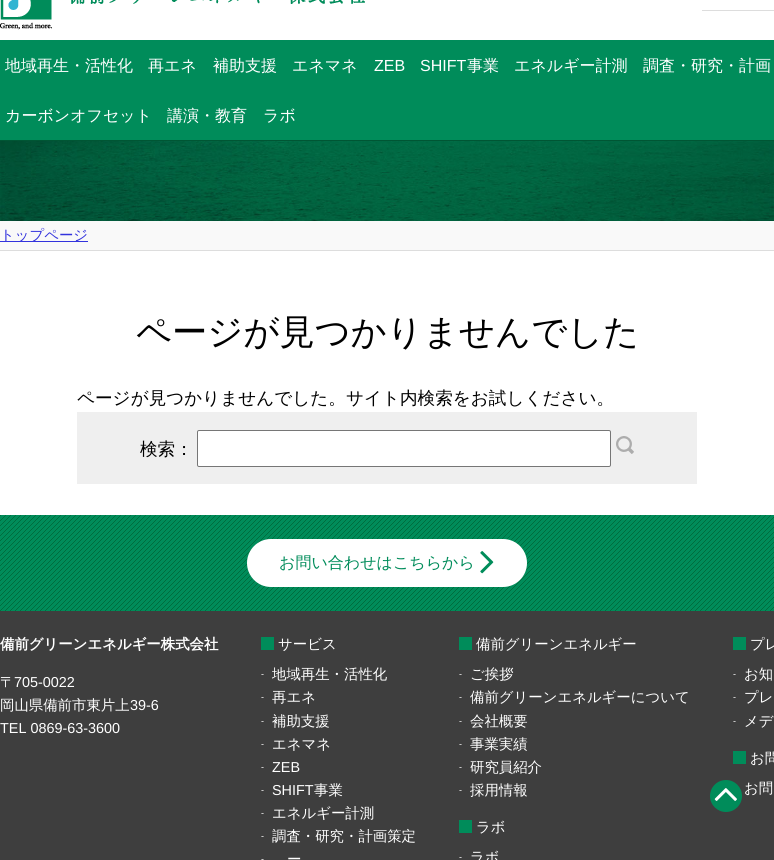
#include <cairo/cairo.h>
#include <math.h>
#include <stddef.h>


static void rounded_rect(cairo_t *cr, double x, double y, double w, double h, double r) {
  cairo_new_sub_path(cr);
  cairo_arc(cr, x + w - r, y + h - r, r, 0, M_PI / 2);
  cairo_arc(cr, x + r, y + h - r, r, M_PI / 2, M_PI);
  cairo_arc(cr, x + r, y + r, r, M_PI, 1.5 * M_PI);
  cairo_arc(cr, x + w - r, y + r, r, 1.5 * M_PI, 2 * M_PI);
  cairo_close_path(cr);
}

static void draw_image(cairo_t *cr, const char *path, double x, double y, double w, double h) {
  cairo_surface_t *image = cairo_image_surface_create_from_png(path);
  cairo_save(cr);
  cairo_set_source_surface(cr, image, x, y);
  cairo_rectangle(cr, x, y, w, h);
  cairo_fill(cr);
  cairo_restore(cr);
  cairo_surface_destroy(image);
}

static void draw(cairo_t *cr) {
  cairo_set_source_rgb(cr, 1, 1, 1);
  cairo_paint(cr);
  draw_image(cr, "images/1.png", 0, 0, 365, 30);
  cairo_set_source_rgb(cr, 221 / 255.0, 221 / 255.0, 221 / 255.0);
  cairo_rectangle(cr, 702, 10, 72, 1);
  cairo_fill(cr);
  cairo_set_source_rgb(cr, 0, 140 / 255.0, 90 / 255.0);
  cairo_rectangle(cr, 0, 40, 774, 100);
  cairo_fill(cr);
  draw_image(cr, "images/2.png", 0, 141, 774, 80);
  cairo_set_source_rgb(cr, 0, 86 / 255.0, 52 / 255.0);
  cairo_rectangle(cr, 0, 140, 774, 1);
  cairo_fill(cr);
  cairo_set_source_rgb(cr, 249 / 255.0, 249 / 255.0, 249 / 255.0);
  cairo_rectangle(cr, 0, 221, 774, 29);
  cairo_fill(cr);
  cairo_set_source_rgb(cr, 221 / 255.0, 221 / 255.0, 221 / 255.0);
  cairo_rectangle(cr, 0, 250, 774, 1);
  cairo_fill(cr);
  cairo_set_source_rgb(cr, 51 / 255.0, 51 / 255.0, 221 / 255.0);
  cairo_rectangle(cr, 0, 241, 88, 1);
  cairo_fill(cr);
  cairo_set_source_rgb(cr, 239 / 255.0, 239 / 255.0, 239 / 255.0);
  cairo_rectangle(cr, 77, 412, 620, 72);
  cairo_fill(cr);
  cairo_set_source_rgb(cr, 1, 1, 1);
  rounded_rect(cr, 197.5, 430.5, 413, 36, 1.5);
  cairo_fill_preserve(cr);
  cairo_set_source_rgb(cr, 118 / 255.0, 118 / 255.0, 118 / 255.0);
  cairo_set_line_width(cr, 1);
  cairo_stroke(cr);
  draw_image(cr, "images/3.png", 616, 436, 18, 18);
  cairo_set_source_rgb(cr, 62 / 255.0, 62 / 255.0, 62 / 255.0);
  cairo_rectangle(cr, 0, 611, 774, 249);
  cairo_fill(cr);
  cairo_set_source_rgb(cr, 0, 140 / 255.0, 90 / 255.0);
  cairo_arc(cr, 726, 796, 16, 0, 2 * M_PI);
  cairo_fill(cr);
  draw_image(cr, "images/4.png", 714, 788, 23, 13);
  draw_image(cr, "images/5.png", 0, 515, 774, 96);
  cairo_set_source_rgb(cr, 1, 1, 1);
  rounded_rect(cr, 247, 539, 280, 48, 24);
  cairo_fill(cr);
  draw_image(cr, "images/6.png", 480, 551, 14, 23);
  cairo_set_source_rgb(cr, 0, 140 / 255.0, 90 / 255.0);
  cairo_rectangle(cr, 261, 637, 13, 13);
  cairo_fill(cr);
  cairo_rectangle(cr, 459, 637, 13, 13);
  cairo_fill(cr);
  cairo_rectangle(cr, 459, 820, 13, 13);
  cairo_fill(cr);
  cairo_rectangle(cr, 733, 637, 13, 13);
  cairo_fill(cr);
  cairo_rectangle(cr, 733, 751, 13, 13);
  cairo_fill(cr);
  cairo_select_font_face(cr, "WenQuanYi Zen Hei Medium", CAIRO_FONT_SLANT_NORMAL, CAIRO_FONT_WEIGHT_NORMAL);
  cairo_set_font_size(cr, 16);
  cairo_set_source_rgb(cr, 1, 1, 1);
  cairo_move_to(cr, 5, 71);
  cairo_show_text(cr, "地域再生・活性化");
  cairo_move_to(cr, 148, 71);
  cairo_show_text(cr, "再エネ");
  cairo_move_to(cr, 213, 71);
  cairo_show_text(cr, "補助支援");
  cairo_move_to(cr, 292, 71);
  cairo_show_text(cr, "エネマネ");
  cairo_select_font_face(cr, "Liberation Sans", CAIRO_FONT_SLANT_NORMAL, CAIRO_FONT_WEIGHT_NORMAL);
  cairo_move_to(cr, 374, 71);
  cairo_show_text(cr, "ZEB");
  cairo_move_to(cr, 420, 71);
  cairo_show_text(cr, "SHIFT");
  cairo_select_font_face(cr, "WenQuanYi Zen Hei Medium", CAIRO_FONT_SLANT_NORMAL, CAIRO_FONT_WEIGHT_NORMAL);
  cairo_move_to(cr, 467, 71);
  cairo_show_text(cr, "事業");
  cairo_move_to(cr, 514, 71);
  cairo_show_text(cr, "エネルギー計測");
  cairo_move_to(cr, 643, 71);
  cairo_show_text(cr, "調査・研究・計画");
  cairo_move_to(cr, 5, 121);
  cairo_show_text(cr, "カーボンオフセット");
  cairo_move_to(cr, 167, 121);
  cairo_show_text(cr, "講演・教育");
  cairo_move_to(cr, 263, 121);
  cairo_show_text(cr, "ラボ");
  cairo_set_font_size(cr, 14.4);
  cairo_set_source_rgb(cr, 51 / 255.0, 51 / 255.0, 221 / 255.0);
  cairo_move_to(cr, 0, 240);
  cairo_show_text(cr, "トップページ");
  cairo_set_font_size(cr, 35.25);
  cairo_set_source_rgb(cr, 0, 0, 0);
  cairo_move_to(cr, 136, 344);
  cairo_show_text(cr, "ページが見つかりませんでした");
  cairo_set_font_size(cr, 17.6);
  cairo_move_to(cr, 77, 404);
  cairo_show_text(cr, "ページが見つかりませんでした。サイト内検索をお試しください。");
  cairo_move_to(cr, 140, 455);
  cairo_show_text(cr, "検索：");
  cairo_set_font_size(cr, 16);
  cairo_set_source_rgb(cr, 0, 140 / 255.0, 90 / 255.0);
  cairo_move_to(cr, 279, 568);
  cairo_show_text(cr, "お問い合わせはこちらから");
  cairo_select_font_face(cr, "WenQuanYi Zen Hei", CAIRO_FONT_SLANT_NORMAL, CAIRO_FONT_WEIGHT_BOLD);
  cairo_set_font_size(cr, 14.4);
  cairo_set_source_rgb(cr, 1, 1, 1);
  cairo_move_to(cr, 0, 649);
  cairo_show_text(cr, "備前グリーンエネルギー株式会社");
  cairo_select_font_face(cr, "WenQuanYi Zen Hei Medium", CAIRO_FONT_SLANT_NORMAL, CAIRO_FONT_WEIGHT_NORMAL);
  cairo_move_to(cr, 0, 687);
  cairo_show_text(cr, "〒");
  cairo_select_font_face(cr, "Liberation Sans", CAIRO_FONT_SLANT_NORMAL, CAIRO_FONT_WEIGHT_NORMAL);
  cairo_move_to(cr, 14, 687);
  cairo_show_text(cr, "705-0022");
  cairo_select_font_face(cr, "WenQuanYi Zen Hei Medium", CAIRO_FONT_SLANT_NORMAL, CAIRO_FONT_WEIGHT_NORMAL);
  cairo_move_to(cr, 0, 710);
  cairo_show_text(cr, "岡山県備前市東片上");
  cairo_select_font_face(cr, "Liberation Sans", CAIRO_FONT_SLANT_NORMAL, CAIRO_FONT_WEIGHT_NORMAL);
  cairo_move_to(cr, 130, 710);
  cairo_show_text(cr, "39-6");
  cairo_move_to(cr, 0, 733);
  cairo_show_text(cr, "TEL 0869-63-3600");
  cairo_select_font_face(cr, "WenQuanYi Zen Hei Medium", CAIRO_FONT_SLANT_NORMAL, CAIRO_FONT_WEIGHT_NORMAL);
  cairo_move_to(cr, 278, 649);
  cairo_show_text(cr, "サービス");
  cairo_select_font_face(cr, "Liberation Sans", CAIRO_FONT_SLANT_NORMAL, CAIRO_FONT_WEIGHT_NORMAL);
  cairo_set_font_size(cr, 9);
  cairo_move_to(cr, 261, 677);
  cairo_show_text(cr, "-");
  cairo_select_font_face(cr, "WenQuanYi Zen Hei Medium", CAIRO_FONT_SLANT_NORMAL, CAIRO_FONT_WEIGHT_NORMAL);
  cairo_set_font_size(cr, 14.4);
  cairo_move_to(cr, 272, 679);
  cairo_show_text(cr, "地域再生・活性化");
  cairo_select_font_face(cr, "Liberation Sans", CAIRO_FONT_SLANT_NORMAL, CAIRO_FONT_WEIGHT_NORMAL);
  cairo_set_font_size(cr, 9);
  cairo_move_to(cr, 261, 700);
  cairo_show_text(cr, "-");
  cairo_select_font_face(cr, "WenQuanYi Zen Hei Medium", CAIRO_FONT_SLANT_NORMAL, CAIRO_FONT_WEIGHT_NORMAL);
  cairo_set_font_size(cr, 14.4);
  cairo_move_to(cr, 272, 702);
  cairo_show_text(cr, "再エネ");
  cairo_select_font_face(cr, "Liberation Sans", CAIRO_FONT_SLANT_NORMAL, CAIRO_FONT_WEIGHT_NORMAL);
  cairo_set_font_size(cr, 9);
  cairo_move_to(cr, 261, 724);
  cairo_show_text(cr, "-");
  cairo_select_font_face(cr, "WenQuanYi Zen Hei Medium", CAIRO_FONT_SLANT_NORMAL, CAIRO_FONT_WEIGHT_NORMAL);
  cairo_set_font_size(cr, 14.4);
  cairo_move_to(cr, 272, 726);
  cairo_show_text(cr, "補助支援");
  cairo_select_font_face(cr, "Liberation Sans", CAIRO_FONT_SLANT_NORMAL, CAIRO_FONT_WEIGHT_NORMAL);
  cairo_set_font_size(cr, 9);
  cairo_move_to(cr, 261, 747);
  cairo_show_text(cr, "-");
  cairo_select_font_face(cr, "WenQuanYi Zen Hei Medium", CAIRO_FONT_SLANT_NORMAL, CAIRO_FONT_WEIGHT_NORMAL);
  cairo_set_font_size(cr, 14.4);
  cairo_move_to(cr, 272, 749);
  cairo_show_text(cr, "エネマネ");
  cairo_select_font_face(cr, "Liberation Sans", CAIRO_FONT_SLANT_NORMAL, CAIRO_FONT_WEIGHT_NORMAL);
  cairo_set_font_size(cr, 9);
  cairo_move_to(cr, 261, 770);
  cairo_show_text(cr, "-");
  cairo_set_font_size(cr, 14.4);
  cairo_move_to(cr, 272, 772);
  cairo_show_text(cr, "ZEB");
  cairo_set_font_size(cr, 9);
  cairo_move_to(cr, 261, 793);
  cairo_show_text(cr, "-");
  cairo_set_font_size(cr, 14.4);
  cairo_move_to(cr, 272, 795);
  cairo_show_text(cr, "SHIFT");
  cairo_select_font_face(cr, "WenQuanYi Zen Hei Medium", CAIRO_FONT_SLANT_NORMAL, CAIRO_FONT_WEIGHT_NORMAL);
  cairo_move_to(cr, 314, 795);
  cairo_show_text(cr, "事業");
  cairo_select_font_face(cr, "Liberation Sans", CAIRO_FONT_SLANT_NORMAL, CAIRO_FONT_WEIGHT_NORMAL);
  cairo_set_font_size(cr, 9);
  cairo_move_to(cr, 261, 816);
  cairo_show_text(cr, "-");
  cairo_select_font_face(cr, "WenQuanYi Zen Hei Medium", CAIRO_FONT_SLANT_NORMAL, CAIRO_FONT_WEIGHT_NORMAL);
  cairo_set_font_size(cr, 14.4);
  cairo_move_to(cr, 272, 818);
  cairo_show_text(cr, "エネルギー計測");
  cairo_select_font_face(cr, "Liberation Sans", CAIRO_FONT_SLANT_NORMAL, CAIRO_FONT_WEIGHT_NORMAL);
  cairo_set_font_size(cr, 9);
  cairo_move_to(cr, 261, 839);
  cairo_show_text(cr, "-");
  cairo_select_font_face(cr, "WenQuanYi Zen Hei Medium", CAIRO_FONT_SLANT_NORMAL, CAIRO_FONT_WEIGHT_NORMAL);
  cairo_set_font_size(cr, 14.4);
  cairo_move_to(cr, 272, 841);
  cairo_show_text(cr, "調査・研究・計画策定");
  cairo_select_font_face(cr, "Liberation Sans", CAIRO_FONT_SLANT_NORMAL, CAIRO_FONT_WEIGHT_NORMAL);
  cairo_set_font_size(cr, 9);
  cairo_move_to(cr, 261, 862);
  cairo_show_text(cr, "-");
  cairo_select_font_face(cr, "WenQuanYi Zen Hei Medium", CAIRO_FONT_SLANT_NORMAL, CAIRO_FONT_WEIGHT_NORMAL);
  cairo_set_font_size(cr, 14.4);
  cairo_move_to(cr, 287, 864);
  cairo_show_text(cr, "ー");
  cairo_move_to(cr, 476, 649);
  cairo_show_text(cr, "備前グリーンエネルギー");
  cairo_select_font_face(cr, "Liberation Sans", CAIRO_FONT_SLANT_NORMAL, CAIRO_FONT_WEIGHT_NORMAL);
  cairo_set_font_size(cr, 9);
  cairo_move_to(cr, 459, 677);
  cairo_show_text(cr, "-");
  cairo_select_font_face(cr, "WenQuanYi Zen Hei Medium", CAIRO_FONT_SLANT_NORMAL, CAIRO_FONT_WEIGHT_NORMAL);
  cairo_set_font_size(cr, 14.4);
  cairo_move_to(cr, 470, 679);
  cairo_show_text(cr, "ご挨拶");
  cairo_select_font_face(cr, "Liberation Sans", CAIRO_FONT_SLANT_NORMAL, CAIRO_FONT_WEIGHT_NORMAL);
  cairo_set_font_size(cr, 9);
  cairo_move_to(cr, 459, 700);
  cairo_show_text(cr, "-");
  cairo_select_font_face(cr, "WenQuanYi Zen Hei Medium", CAIRO_FONT_SLANT_NORMAL, CAIRO_FONT_WEIGHT_NORMAL);
  cairo_set_font_size(cr, 14.4);
  cairo_move_to(cr, 470, 702);
  cairo_show_text(cr, "備前グリーンエネルギーについて");
  cairo_select_font_face(cr, "Liberation Sans", CAIRO_FONT_SLANT_NORMAL, CAIRO_FONT_WEIGHT_NORMAL);
  cairo_set_font_size(cr, 9);
  cairo_move_to(cr, 459, 724);
  cairo_show_text(cr, "-");
  cairo_select_font_face(cr, "WenQuanYi Zen Hei Medium", CAIRO_FONT_SLANT_NORMAL, CAIRO_FONT_WEIGHT_NORMAL);
  cairo_set_font_size(cr, 14.4);
  cairo_move_to(cr, 470, 726);
  cairo_show_text(cr, "会社概要");
  cairo_select_font_face(cr, "Liberation Sans", CAIRO_FONT_SLANT_NORMAL, CAIRO_FONT_WEIGHT_NORMAL);
  cairo_set_font_size(cr, 9);
  cairo_move_to(cr, 459, 747);
  cairo_show_text(cr, "-");
  cairo_select_font_face(cr, "WenQuanYi Zen Hei Medium", CAIRO_FONT_SLANT_NORMAL, CAIRO_FONT_WEIGHT_NORMAL);
  cairo_set_font_size(cr, 14.4);
  cairo_move_to(cr, 470, 749);
  cairo_show_text(cr, "事業実績");
  cairo_select_font_face(cr, "Liberation Sans", CAIRO_FONT_SLANT_NORMAL, CAIRO_FONT_WEIGHT_NORMAL);
  cairo_set_font_size(cr, 9);
  cairo_move_to(cr, 459, 770);
  cairo_show_text(cr, "-");
  cairo_select_font_face(cr, "WenQuanYi Zen Hei Medium", CAIRO_FONT_SLANT_NORMAL, CAIRO_FONT_WEIGHT_NORMAL);
  cairo_set_font_size(cr, 14.4);
  cairo_move_to(cr, 470, 772);
  cairo_show_text(cr, "研究員紹介");
  cairo_select_font_face(cr, "Liberation Sans", CAIRO_FONT_SLANT_NORMAL, CAIRO_FONT_WEIGHT_NORMAL);
  cairo_set_font_size(cr, 9);
  cairo_move_to(cr, 459, 793);
  cairo_show_text(cr, "-");
  cairo_select_font_face(cr, "WenQuanYi Zen Hei Medium", CAIRO_FONT_SLANT_NORMAL, CAIRO_FONT_WEIGHT_NORMAL);
  cairo_set_font_size(cr, 14.4);
  cairo_move_to(cr, 470, 795);
  cairo_show_text(cr, "採用情報");
  cairo_move_to(cr, 476, 832);
  cairo_show_text(cr, "ラボ");
  cairo_select_font_face(cr, "Liberation Sans", CAIRO_FONT_SLANT_NORMAL, CAIRO_FONT_WEIGHT_NORMAL);
  cairo_set_font_size(cr, 9);
  cairo_move_to(cr, 459, 860);
  cairo_show_text(cr, "-");
  cairo_select_font_face(cr, "WenQuanYi Zen Hei Medium", CAIRO_FONT_SLANT_NORMAL, CAIRO_FONT_WEIGHT_NORMAL);
  cairo_set_font_size(cr, 14.4);
  cairo_move_to(cr, 470, 862);
  cairo_show_text(cr, "ラボ");
  cairo_move_to(cr, 750, 649);
  cairo_show_text(cr, "プレ");
  cairo_select_font_face(cr, "Liberation Sans", CAIRO_FONT_SLANT_NORMAL, CAIRO_FONT_WEIGHT_NORMAL);
  cairo_set_font_size(cr, 9);
  cairo_move_to(cr, 733, 677);
  cairo_show_text(cr, "-");
  cairo_select_font_face(cr, "WenQuanYi Zen Hei Medium", CAIRO_FONT_SLANT_NORMAL, CAIRO_FONT_WEIGHT_NORMAL);
  cairo_set_font_size(cr, 14.4);
  cairo_move_to(cr, 744, 679);
  cairo_show_text(cr, "お知");
  cairo_select_font_face(cr, "Liberation Sans", CAIRO_FONT_SLANT_NORMAL, CAIRO_FONT_WEIGHT_NORMAL);
  cairo_set_font_size(cr, 9);
  cairo_move_to(cr, 733, 700);
  cairo_show_text(cr, "-");
  cairo_select_font_face(cr, "WenQuanYi Zen Hei Medium", CAIRO_FONT_SLANT_NORMAL, CAIRO_FONT_WEIGHT_NORMAL);
  cairo_set_font_size(cr, 14.4);
  cairo_move_to(cr, 744, 702);
  cairo_show_text(cr, "プレ");
  cairo_select_font_face(cr, "Liberation Sans", CAIRO_FONT_SLANT_NORMAL, CAIRO_FONT_WEIGHT_NORMAL);
  cairo_set_font_size(cr, 9);
  cairo_move_to(cr, 733, 724);
  cairo_show_text(cr, "-");
  cairo_select_font_face(cr, "WenQuanYi Zen Hei Medium", CAIRO_FONT_SLANT_NORMAL, CAIRO_FONT_WEIGHT_NORMAL);
  cairo_set_font_size(cr, 14.4);
  cairo_move_to(cr, 744, 726);
  cairo_show_text(cr, "メデ");
  cairo_move_to(cr, 750, 763);
  cairo_show_text(cr, "お問");
  cairo_move_to(cr, 744, 793);
  cairo_show_text(cr, "お問");
}

int main(void) {
  cairo_surface_t *surface = cairo_image_surface_create(CAIRO_FORMAT_RGB24, 774, 860);
  cairo_t *cr = cairo_create(surface);
  cairo_font_options_t *options = cairo_font_options_create();
  cairo_font_options_set_hint_metrics(options, CAIRO_HINT_METRICS_OFF);
  cairo_font_options_set_hint_style(options, CAIRO_HINT_STYLE_NONE);
  cairo_set_font_options(cr, options);
  cairo_set_miter_limit(cr, 4);
  draw(cr);
  cairo_surface_write_to_png(surface, "out.png");
  cairo_font_options_destroy(options);
  cairo_destroy(cr);
  cairo_surface_destroy(surface);
  return 0;
}
